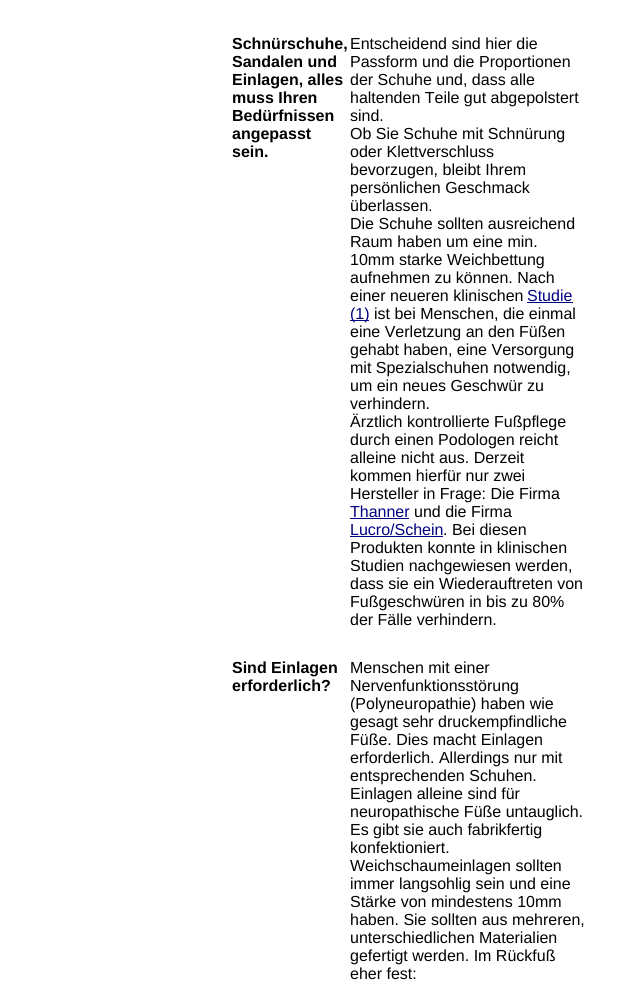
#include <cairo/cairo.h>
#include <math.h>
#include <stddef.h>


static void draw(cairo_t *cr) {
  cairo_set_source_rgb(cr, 1, 1, 1);
  cairo_paint(cr);
  cairo_set_source_rgb(cr, 0, 0, 128 / 255.0);
  cairo_rectangle(cr, 527, 302, 46, 1);
  cairo_fill(cr);
  cairo_rectangle(cr, 350, 320, 19, 1);
  cairo_fill(cr);
  cairo_rectangle(cr, 350, 518, 59, 1);
  cairo_fill(cr);
  cairo_rectangle(cr, 350, 536, 93, 1);
  cairo_fill(cr);
  cairo_select_font_face(cr, "Liberation Sans", CAIRO_FONT_SLANT_NORMAL, CAIRO_FONT_WEIGHT_BOLD);
  cairo_set_font_size(cr, 16);
  cairo_set_source_rgb(cr, 0, 0, 0);
  cairo_move_to(cr, 232, 49);
  cairo_show_text(cr, "Schnürschuhe,");
  cairo_move_to(cr, 232, 67);
  cairo_show_text(cr, "Sandalen und");
  cairo_move_to(cr, 232, 85);
  cairo_show_text(cr, "Einlagen, alles");
  cairo_move_to(cr, 232, 103);
  cairo_show_text(cr, "muss Ihren");
  cairo_move_to(cr, 232, 121);
  cairo_show_text(cr, "Bedürfnissen");
  cairo_move_to(cr, 232, 139);
  cairo_show_text(cr, "angepasst");
  cairo_move_to(cr, 232, 157);
  cairo_show_text(cr, "sein.");
  cairo_select_font_face(cr, "Liberation Sans", CAIRO_FONT_SLANT_NORMAL, CAIRO_FONT_WEIGHT_NORMAL);
  cairo_move_to(cr, 350, 49);
  cairo_show_text(cr, "Entscheidend sind hier die");
  cairo_move_to(cr, 350, 67);
  cairo_show_text(cr, "Passform und die Proportionen");
  cairo_move_to(cr, 350, 85);
  cairo_show_text(cr, "der Schuhe und, dass alle");
  cairo_move_to(cr, 350, 103);
  cairo_show_text(cr, "haltenden Teile gut abgepolstert");
  cairo_move_to(cr, 350, 121);
  cairo_show_text(cr, "sind.");
  cairo_move_to(cr, 350, 139);
  cairo_show_text(cr, "Ob Sie Schuhe mit Schnürung");
  cairo_move_to(cr, 350, 157);
  cairo_show_text(cr, "oder Klettverschluss");
  cairo_move_to(cr, 350, 175);
  cairo_show_text(cr, "bevorzugen, bleibt Ihrem");
  cairo_move_to(cr, 350, 193);
  cairo_show_text(cr, "persönlichen Geschmack");
  cairo_move_to(cr, 350, 211);
  cairo_show_text(cr, "überlassen.");
  cairo_move_to(cr, 350, 229);
  cairo_show_text(cr, "Die Schuhe sollten ausreichend");
  cairo_move_to(cr, 350, 247);
  cairo_show_text(cr, "Raum haben um eine min.");
  cairo_move_to(cr, 350, 265);
  cairo_show_text(cr, "10mm starke Weichbettung");
  cairo_move_to(cr, 350, 283);
  cairo_show_text(cr, "aufnehmen zu können. Nach");
  cairo_move_to(cr, 350, 301);
  cairo_show_text(cr, "einer neueren klinischen");
  cairo_set_source_rgb(cr, 0, 0, 128 / 255.0);
  cairo_move_to(cr, 527, 301);
  cairo_show_text(cr, "Studie");
  cairo_move_to(cr, 350, 319);
  cairo_show_text(cr, "(1)");
  cairo_set_source_rgb(cr, 0, 0, 0);
  cairo_move_to(cr, 374, 319);
  cairo_show_text(cr, "ist bei Menschen, die einmal");
  cairo_move_to(cr, 350, 337);
  cairo_show_text(cr, "eine Verletzung an den Füßen");
  cairo_move_to(cr, 350, 355);
  cairo_show_text(cr, "gehabt haben, eine Versorgung");
  cairo_move_to(cr, 350, 373);
  cairo_show_text(cr, "mit Spezialschuhen notwendig,");
  cairo_move_to(cr, 350, 391);
  cairo_show_text(cr, "um ein neues Geschwür zu");
  cairo_move_to(cr, 350, 409);
  cairo_show_text(cr, "verhindern.");
  cairo_move_to(cr, 350, 427);
  cairo_show_text(cr, "Ärztlich kontrollierte Fußpflege");
  cairo_move_to(cr, 350, 445);
  cairo_show_text(cr, "durch einen Podologen reicht");
  cairo_move_to(cr, 350, 463);
  cairo_show_text(cr, "alleine nicht aus. Derzeit");
  cairo_move_to(cr, 350, 481);
  cairo_show_text(cr, "kommen hierfür nur zwei");
  cairo_move_to(cr, 350, 499);
  cairo_show_text(cr, "Hersteller in Frage: Die Firma");
  cairo_set_source_rgb(cr, 0, 0, 128 / 255.0);
  cairo_move_to(cr, 350, 517);
  cairo_show_text(cr, "Thanner");
  cairo_set_source_rgb(cr, 0, 0, 0);
  cairo_move_to(cr, 414, 517);
  cairo_show_text(cr, "und die Firma");
  cairo_set_source_rgb(cr, 0, 0, 128 / 255.0);
  cairo_move_to(cr, 350, 535);
  cairo_show_text(cr, "Lucro/Schein");
  cairo_set_source_rgb(cr, 0, 0, 0);
  cairo_move_to(cr, 443, 535);
  cairo_show_text(cr, ". Bei diesen");
  cairo_move_to(cr, 350, 553);
  cairo_show_text(cr, "Produkten konnte in klinischen");
  cairo_move_to(cr, 350, 571);
  cairo_show_text(cr, "Studien nachgewiesen werden,");
  cairo_move_to(cr, 350, 589);
  cairo_show_text(cr, "dass sie ein Wiederauftreten von");
  cairo_move_to(cr, 350, 607);
  cairo_show_text(cr, "Fußgeschwüren in bis zu 80%");
  cairo_move_to(cr, 350, 625);
  cairo_show_text(cr, "der Fälle verhindern.");
  cairo_select_font_face(cr, "Liberation Sans", CAIRO_FONT_SLANT_NORMAL, CAIRO_FONT_WEIGHT_BOLD);
  cairo_move_to(cr, 232, 673);
  cairo_show_text(cr, "Sind Einlagen");
  cairo_move_to(cr, 232, 691);
  cairo_show_text(cr, "erforderlich?");
  cairo_select_font_face(cr, "Liberation Sans", CAIRO_FONT_SLANT_NORMAL, CAIRO_FONT_WEIGHT_NORMAL);
  cairo_move_to(cr, 350, 673);
  cairo_show_text(cr, "Menschen mit einer");
  cairo_move_to(cr, 350, 691);
  cairo_show_text(cr, "Nervenfunktionsstörung");
  cairo_move_to(cr, 350, 709);
  cairo_show_text(cr, "(Polyneuropathie) haben wie");
  cairo_move_to(cr, 350, 727);
  cairo_show_text(cr, "gesagt sehr druckempfindliche");
  cairo_move_to(cr, 350, 745);
  cairo_show_text(cr, "Füße. Dies macht Einlagen");
  cairo_move_to(cr, 350, 763);
  cairo_show_text(cr, "erforderlich. Allerdings nur mit");
  cairo_move_to(cr, 350, 781);
  cairo_show_text(cr, "entsprechenden Schuhen.");
  cairo_move_to(cr, 350, 799);
  cairo_show_text(cr, "Einlagen alleine sind für");
  cairo_move_to(cr, 350, 817);
  cairo_show_text(cr, "neuropathische Füße untauglich.");
  cairo_move_to(cr, 350, 835);
  cairo_show_text(cr, "Es gibt sie auch fabrikfertig");
  cairo_move_to(cr, 350, 853);
  cairo_show_text(cr, "konfektioniert.");
  cairo_move_to(cr, 350, 871);
  cairo_show_text(cr, "Weichschaumeinlagen sollten");
  cairo_move_to(cr, 350, 889);
  cairo_show_text(cr, "immer langsohlig sein und eine");
  cairo_move_to(cr, 350, 907);
  cairo_show_text(cr, "Stärke von mindestens 10mm");
  cairo_move_to(cr, 350, 925);
  cairo_show_text(cr, "haben. Sie sollten aus mehreren,");
  cairo_move_to(cr, 350, 943);
  cairo_show_text(cr, "unterschiedlichen Materialien");
  cairo_move_to(cr, 350, 961);
  cairo_show_text(cr, "gefertigt werden. Im Rückfuß");
  cairo_move_to(cr, 350, 979);
  cairo_show_text(cr, "eher fest:");
}

int main(void) {
  cairo_surface_t *surface = cairo_image_surface_create(CAIRO_FORMAT_RGB24, 617, 988);
  cairo_t *cr = cairo_create(surface);
  cairo_font_options_t *options = cairo_font_options_create();
  cairo_font_options_set_hint_metrics(options, CAIRO_HINT_METRICS_OFF);
  cairo_font_options_set_hint_style(options, CAIRO_HINT_STYLE_NONE);
  cairo_set_font_options(cr, options);
  cairo_set_miter_limit(cr, 4);
  draw(cr);
  cairo_surface_write_to_png(surface, "out.png");
  cairo_font_options_destroy(options);
  cairo_destroy(cr);
  cairo_surface_destroy(surface);
  return 0;
}
